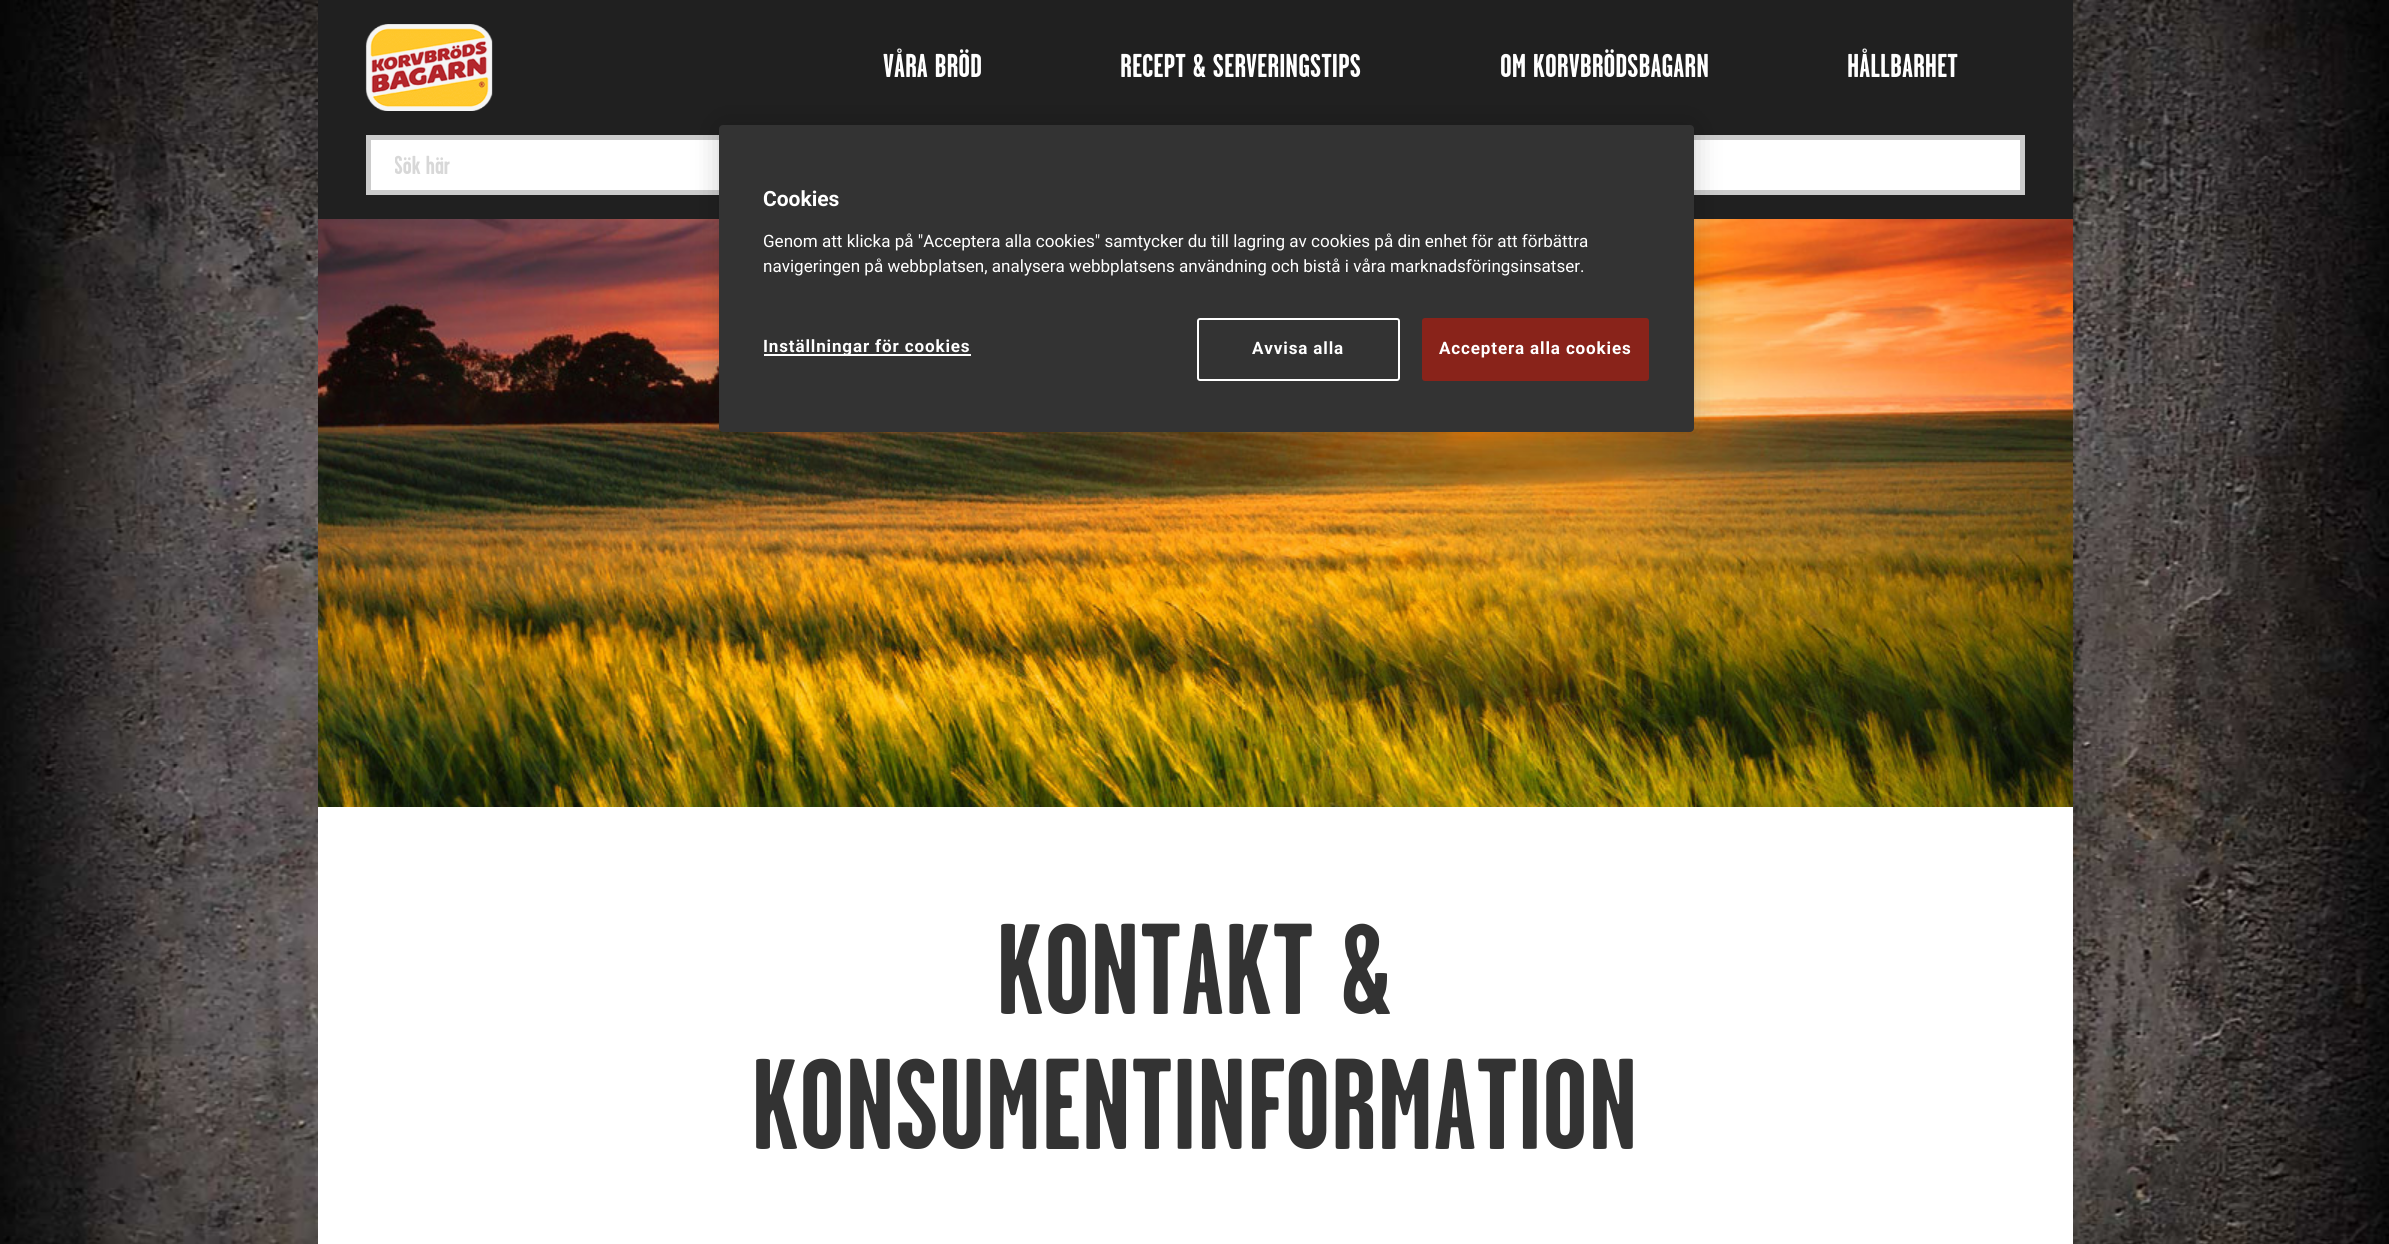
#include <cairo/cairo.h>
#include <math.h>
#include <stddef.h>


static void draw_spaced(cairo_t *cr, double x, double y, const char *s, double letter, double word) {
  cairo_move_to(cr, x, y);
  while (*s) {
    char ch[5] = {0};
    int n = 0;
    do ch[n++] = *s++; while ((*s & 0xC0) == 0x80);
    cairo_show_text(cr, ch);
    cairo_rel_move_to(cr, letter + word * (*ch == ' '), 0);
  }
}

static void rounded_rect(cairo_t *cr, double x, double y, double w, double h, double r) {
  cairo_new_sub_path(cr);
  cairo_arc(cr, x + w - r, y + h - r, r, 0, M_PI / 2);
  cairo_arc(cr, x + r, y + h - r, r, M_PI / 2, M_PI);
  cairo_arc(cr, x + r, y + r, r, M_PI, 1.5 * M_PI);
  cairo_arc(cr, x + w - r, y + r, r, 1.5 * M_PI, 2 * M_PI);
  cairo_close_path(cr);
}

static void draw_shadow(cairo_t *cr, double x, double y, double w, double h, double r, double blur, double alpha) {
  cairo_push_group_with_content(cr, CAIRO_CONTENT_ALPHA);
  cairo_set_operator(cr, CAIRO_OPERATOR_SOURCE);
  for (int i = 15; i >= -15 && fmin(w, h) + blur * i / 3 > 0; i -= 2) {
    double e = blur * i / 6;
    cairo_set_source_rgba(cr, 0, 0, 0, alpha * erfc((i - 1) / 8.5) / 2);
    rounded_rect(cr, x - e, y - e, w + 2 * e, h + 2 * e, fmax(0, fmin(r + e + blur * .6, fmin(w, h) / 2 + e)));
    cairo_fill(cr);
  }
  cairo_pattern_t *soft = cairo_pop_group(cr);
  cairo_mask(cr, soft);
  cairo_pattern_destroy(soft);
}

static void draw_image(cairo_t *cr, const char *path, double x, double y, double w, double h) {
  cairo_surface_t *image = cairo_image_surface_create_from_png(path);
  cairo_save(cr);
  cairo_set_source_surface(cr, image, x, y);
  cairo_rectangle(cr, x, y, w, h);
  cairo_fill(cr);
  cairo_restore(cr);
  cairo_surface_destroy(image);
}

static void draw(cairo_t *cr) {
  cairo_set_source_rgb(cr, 1, 1, 1);
  cairo_paint(cr);
  draw_image(cr, "images/1.png", 0, 0, 2389, 1244);
  cairo_set_source_rgb(cr, 32 / 255.0, 32 / 255.0, 32 / 255.0);
  cairo_rectangle(cr, 318, 0, 1755, 219);
  cairo_fill(cr);
  draw_image(cr, "images/2.png", 365, 24, 128, 87);
  cairo_set_source_rgb(cr, 1, 1, 1);
  cairo_rectangle(cr, 368.5, 137.5, 1654, 55);
  cairo_fill_preserve(cr);
  cairo_set_source_rgb(cr, 204 / 255.0, 204 / 255.0, 204 / 255.0);
  cairo_set_line_width(cr, 5);
  cairo_stroke(cr);
  draw_image(cr, "images/3.png", 318, 219, 1755, 588);
  cairo_set_source_rgb(cr, 0, 0, 0);
  draw_shadow(cr, 719, 125, 975, 307, 4, 13.5, 0.2);
  cairo_set_source_rgb(cr, 51 / 255.0, 51 / 255.0, 51 / 255.0);
  rounded_rect(cr, 719, 125, 975, 307, 4);
  cairo_fill(cr);
  cairo_set_source_rgb(cr, 1, 1, 1);
  cairo_rectangle(cr, 764, 354, 207, 2);
  cairo_fill(cr);
  rounded_rect(cr, 1198, 319, 201, 61, 2);
  cairo_set_line_width(cr, 2);
  cairo_stroke(cr);
  cairo_set_source_rgb(cr, 137 / 255.0, 35 / 255.0, 26 / 255.0);
  rounded_rect(cr, 1423, 319, 225, 61, 2);
  cairo_fill_preserve(cr);
  cairo_stroke(cr);
  cairo_set_source_rgb(cr, 1, 1, 1);
  cairo_rectangle(cr, 318, 807, 1755, 437);
  cairo_fill(cr);
  cairo_select_font_face(cr, "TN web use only", CAIRO_FONT_SLANT_NORMAL, CAIRO_FONT_WEIGHT_BOLD);
  cairo_set_font_size(cr, 33);
  cairo_move_to(cr, 883, 77);
  cairo_show_text(cr, "VÅRA BRÖD");
  cairo_move_to(cr, 1120, 77);
  cairo_show_text(cr, "RECEPT & SERVERINGSTIPS");
  cairo_move_to(cr, 1500, 77);
  cairo_show_text(cr, "OM KORVBRÖDSBAGARN");
  cairo_move_to(cr, 1847, 77);
  cairo_show_text(cr, "HÅLLBARHET");
  cairo_save(cr);
  cairo_rectangle(cr, 395, 150, 1602, 30);
  cairo_clip(cr);
  cairo_set_font_size(cr, 26);
  cairo_set_source_rgb(cr, 216 / 255.0, 216 / 255.0, 216 / 255.0);
  cairo_move_to(cr, 394, 174);
  cairo_show_text(cr, "Sök här");
  cairo_restore(cr);
  cairo_select_font_face(cr, "Roboto", CAIRO_FONT_SLANT_NORMAL, CAIRO_FONT_WEIGHT_BOLD);
  cairo_set_font_size(cr, 21);
  cairo_move_to(cr, 763, 206);
  cairo_show_text(cr, "Cookies");
  cairo_select_font_face(cr, "Roboto", CAIRO_FONT_SLANT_NORMAL, CAIRO_FONT_WEIGHT_NORMAL);
  cairo_set_font_size(cr, 17.05);
  cairo_move_to(cr, 763, 247);
  cairo_show_text(cr, "Genom att klicka på \"Acceptera alla cookies\" samtycker du till lagring av cookies på din enhet för att förbättra");
  cairo_move_to(cr, 763, 272);
  cairo_show_text(cr, "navigeringen på webbplatsen, analysera webbplatsens användning och bistå i våra marknadsföringsinsatser.");
  cairo_select_font_face(cr, "Roboto", CAIRO_FONT_SLANT_NORMAL, CAIRO_FONT_WEIGHT_BOLD);
  draw_spaced(cr, 763, 352, "Inställningar för cookies", 0.85, 0);
  draw_spaced(cr, 1252, 354, "Avvisa alla", 0.85, 0);
  draw_spaced(cr, 1439, 354, "Acceptera alla cookies", 0.85, 0);
  cairo_select_font_face(cr, "TN web use only", CAIRO_FONT_SLANT_NORMAL, CAIRO_FONT_WEIGHT_BOLD);
  cairo_set_font_size(cr, 129);
  cairo_set_source_rgb(cr, 51 / 255.0, 51 / 255.0, 51 / 255.0);
  cairo_move_to(cr, 996, 1014);
  cairo_show_text(cr, "KONTAKT &");
  cairo_move_to(cr, 751, 1149);
  cairo_show_text(cr, "KONSUMENTINFORMATION");
}

int main(void) {
  cairo_surface_t *surface = cairo_image_surface_create(CAIRO_FORMAT_RGB24, 2389, 1244);
  cairo_t *cr = cairo_create(surface);
  cairo_font_options_t *options = cairo_font_options_create();
  cairo_font_options_set_hint_metrics(options, CAIRO_HINT_METRICS_OFF);
  cairo_font_options_set_hint_style(options, CAIRO_HINT_STYLE_NONE);
  cairo_set_font_options(cr, options);
  cairo_set_miter_limit(cr, 4);
  draw(cr);
  cairo_surface_write_to_png(surface, "out.png");
  cairo_font_options_destroy(options);
  cairo_destroy(cr);
  cairo_surface_destroy(surface);
  return 0;
}
